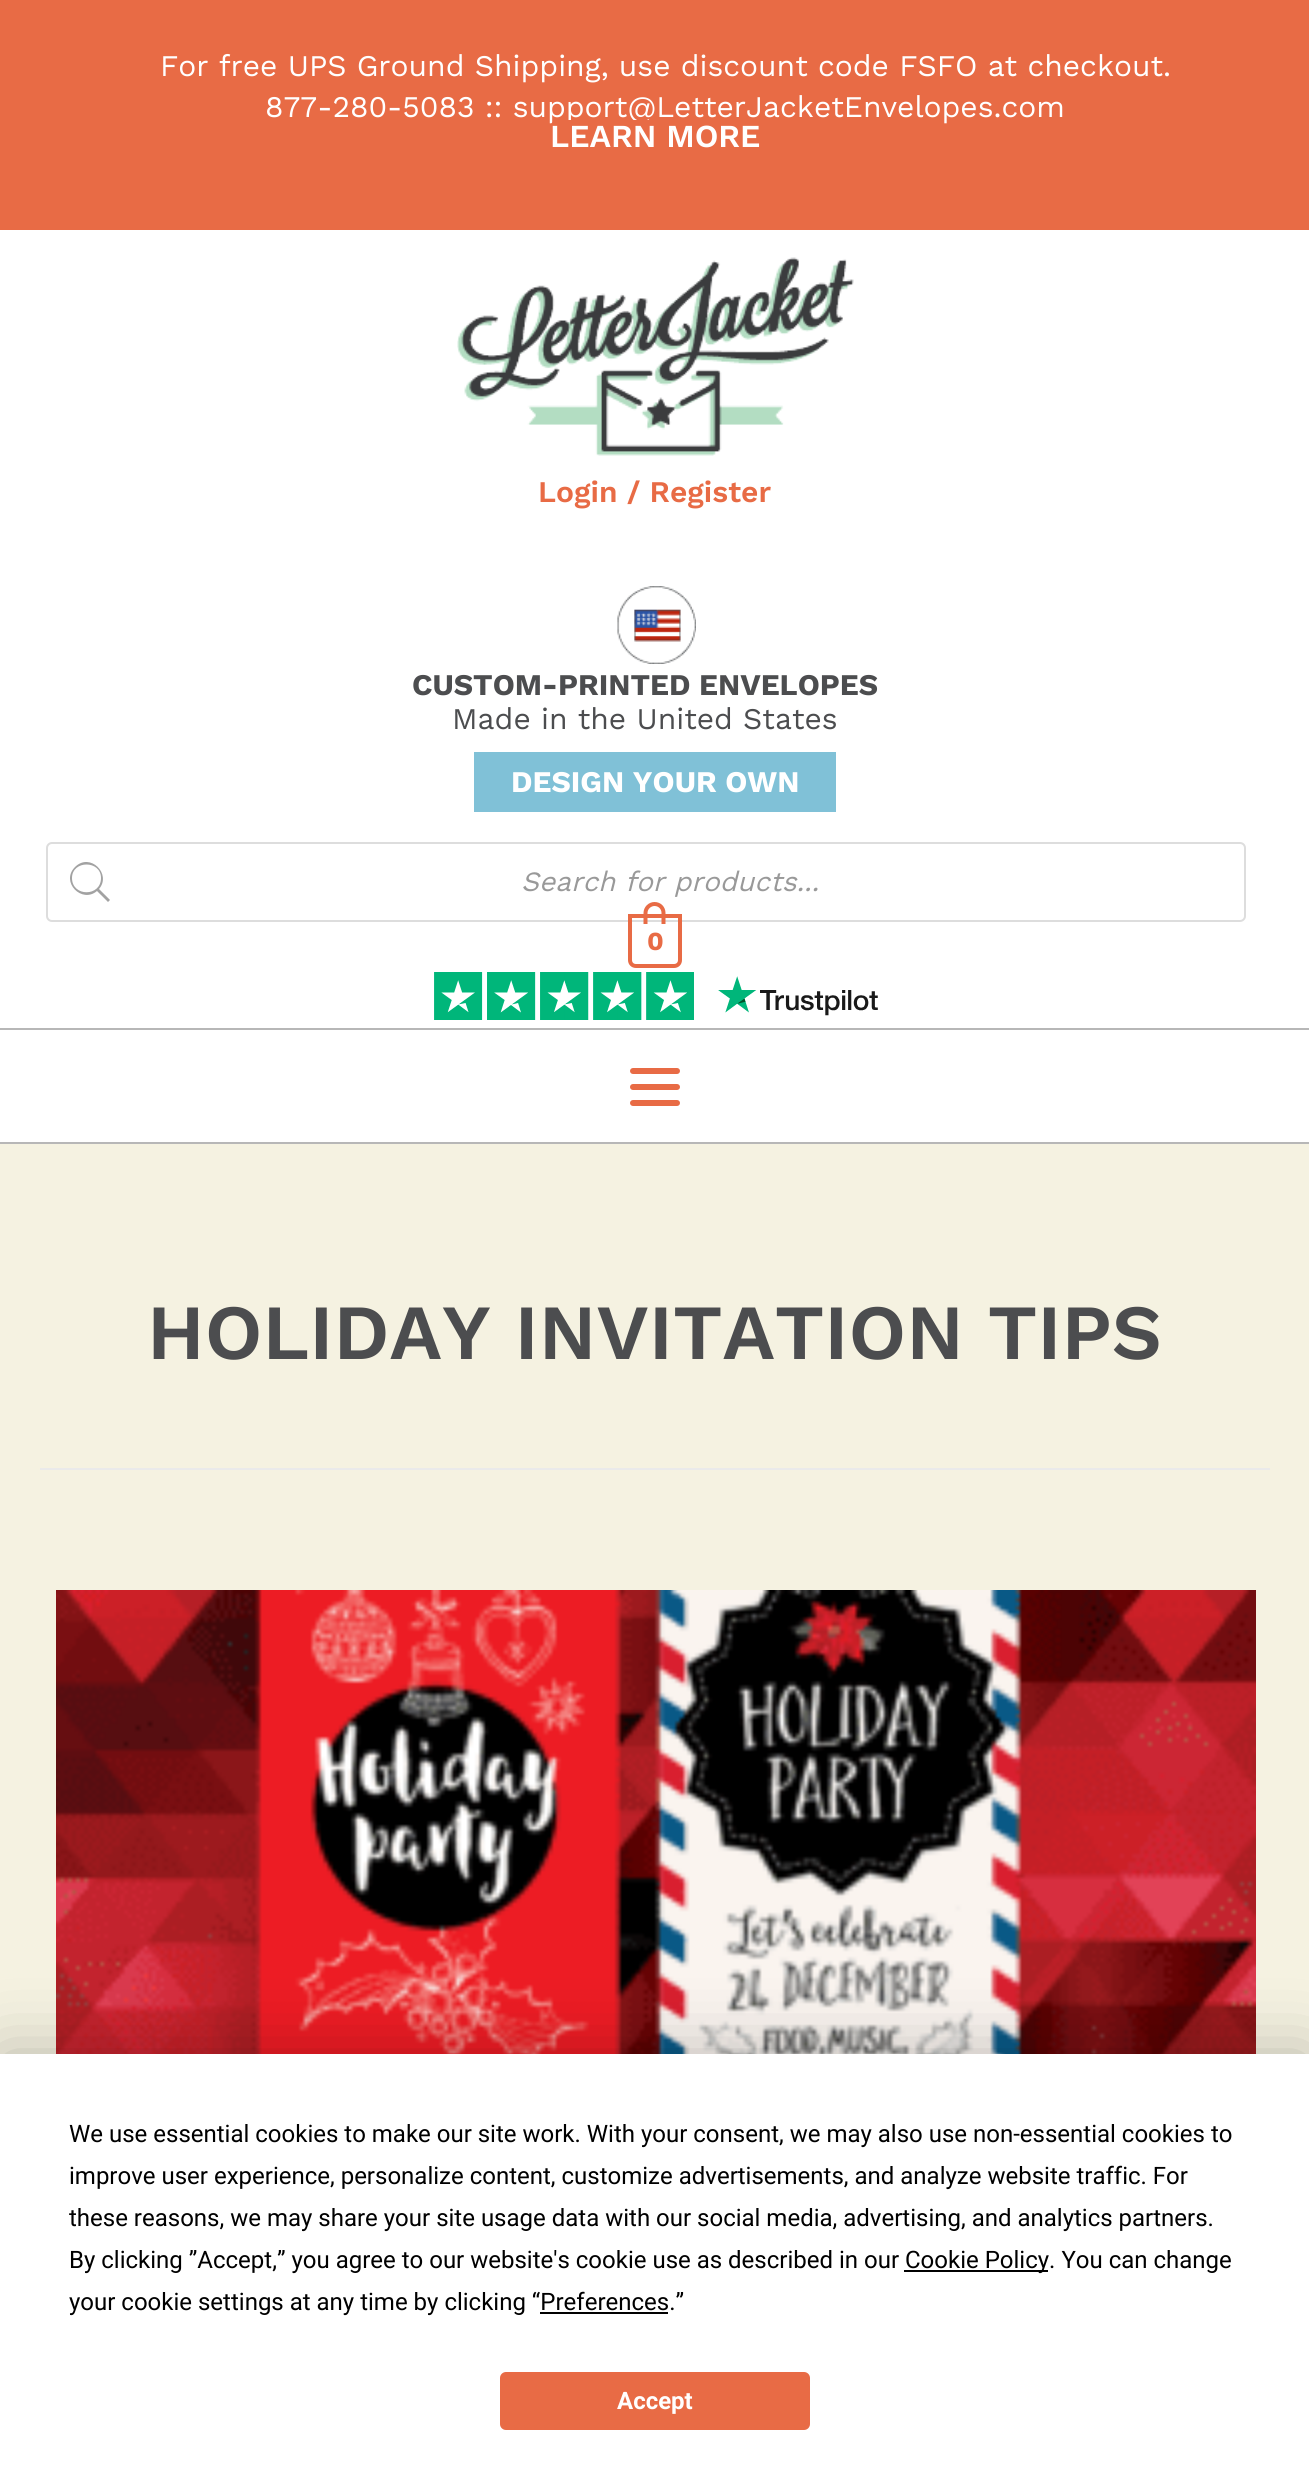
#include <cairo/cairo.h>
#include <math.h>
#include <stddef.h>


static void rounded_rect(cairo_t *cr, double x, double y, double w, double h, double r) {
  cairo_new_sub_path(cr);
  cairo_arc(cr, x + w - r, y + h - r, r, 0, M_PI / 2);
  cairo_arc(cr, x + r, y + h - r, r, M_PI / 2, M_PI);
  cairo_arc(cr, x + r, y + r, r, M_PI, 1.5 * M_PI);
  cairo_arc(cr, x + w - r, y + r, r, 1.5 * M_PI, 2 * M_PI);
  cairo_close_path(cr);
}

static void draw_shadow(cairo_t *cr, double x, double y, double w, double h, double r, double blur, double alpha) {
  cairo_push_group_with_content(cr, CAIRO_CONTENT_ALPHA);
  cairo_set_operator(cr, CAIRO_OPERATOR_SOURCE);
  for (int i = 15; i >= -15 && fmin(w, h) + blur * i / 3 > 0; i -= 2) {
    double e = blur * i / 6;
    cairo_set_source_rgba(cr, 0, 0, 0, alpha * erfc((i - 1) / 8.5) / 2);
    rounded_rect(cr, x - e, y - e, w + 2 * e, h + 2 * e, fmax(0, fmin(r + e + blur * .6, fmin(w, h) / 2 + e)));
    cairo_fill(cr);
  }
  cairo_pattern_t *soft = cairo_pop_group(cr);
  cairo_mask(cr, soft);
  cairo_pattern_destroy(soft);
}

static void draw_image(cairo_t *cr, const char *path, double x, double y, double w, double h) {
  cairo_surface_t *image = cairo_image_surface_create_from_png(path);
  cairo_save(cr);
  cairo_set_source_surface(cr, image, x, y);
  cairo_rectangle(cr, x, y, w, h);
  cairo_fill(cr);
  cairo_restore(cr);
  cairo_surface_destroy(image);
}

static void draw(cairo_t *cr) {
  cairo_set_source_rgb(cr, 245 / 255.0, 242 / 255.0, 225 / 255.0);
  cairo_paint(cr);
  cairo_set_source_rgb(cr, 232 / 255.0, 107 / 255.0, 69 / 255.0);
  cairo_rectangle(cr, 0, 0, 1309, 230);
  cairo_fill(cr);
  cairo_set_source_rgb(cr, 1, 1, 1);
  cairo_rectangle(cr, 0, 230, 1309, 798);
  cairo_fill(cr);
  draw_image(cr, "images/1.png", 457, 257, 397, 199);
  draw_image(cr, "images/2.png", 617, 586, 79, 78);
  cairo_set_source_rgb(cr, 128 / 255.0, 193 / 255.0, 215 / 255.0);
  cairo_rectangle(cr, 474, 752, 362, 60);
  cairo_fill(cr);
  rounded_rect(cr, 47, 843, 1198, 78, 5);
  cairo_set_source_rgb(cr, 221 / 255.0, 221 / 255.0, 221 / 255.0);
  cairo_stroke(cr);
  cairo_set_source_rgb(cr, 162 / 255.0, 162 / 255.0, 162 / 255.0);
  cairo_new_path(cr);
  cairo_move_to(cr, 110, 900);
  cairo_line_to(cr, 99, 889);
  cairo_curve_to(cr, 112, 874, 90, 852, 75, 867);
  cairo_curve_to(cr, 60, 882, 82, 904, 97, 891);
  cairo_line_to(cr, 108, 902);
  cairo_close_path(cr);
  cairo_move_to(cr, 72, 878);
  cairo_curve_to(cr, 72, 860, 101, 860, 101, 878);
  cairo_curve_to(cr, 101, 897, 72, 897, 72, 878);
  cairo_close_path(cr);
  cairo_fill(cr);
  cairo_new_path(cr);
  cairo_move_to(cr, 630, 916);
  cairo_line_to(cr, 680, 916);
  cairo_line_to(cr, 680, 960);
  cairo_curve_to(cr, 680, 963.5, 677.5, 966, 674, 966);
  cairo_line_to(cr, 636, 966);
  cairo_curve_to(cr, 632.5, 966, 630, 963.5, 630, 960);
  cairo_close_path(cr);
  cairo_set_source_rgb(cr, 232 / 255.0, 107 / 255.0, 69 / 255.0);
  cairo_set_line_width(cr, 4);
  cairo_stroke(cr);
  cairo_set_fill_rule(cr, CAIRO_FILL_RULE_EVEN_ODD);
  cairo_new_path(cr);
  cairo_move_to(cr, 654.5, 902);
  cairo_curve_to(cr, 661, 902, 665.5, 907, 665.5, 913);
  cairo_line_to(cr, 665.5, 924);
  cairo_line_to(cr, 643.5, 924);
  cairo_line_to(cr, 643.5, 913);
  cairo_curve_to(cr, 643.5, 907, 648.5, 902, 654.5, 902);
  cairo_close_path(cr);
  cairo_move_to(cr, 654.5, 906);
  cairo_curve_to(cr, 658.5, 906, 661.5, 909, 661.5, 913);
  cairo_line_to(cr, 661.5, 924);
  cairo_line_to(cr, 647.5, 924);
  cairo_line_to(cr, 647.5, 913);
  cairo_curve_to(cr, 647.5, 909, 651, 906, 654.5, 906);
  cairo_close_path(cr);
  cairo_fill(cr);
  draw_image(cr, "images/3.png", 434, 972, 444, 48);
  cairo_set_source_rgb(cr, 1, 1, 1);
  cairo_rectangle(cr, 0, 1030, 1309, 112);
  cairo_fill(cr);
  cairo_set_source_rgb(cr, 183 / 255.0, 183 / 255.0, 183 / 255.0);
  cairo_rectangle(cr, 0, 1028, 1309, 2);
  cairo_fill(cr);
  cairo_rectangle(cr, 0, 1142, 1309, 2);
  cairo_fill(cr);
  cairo_set_source_rgb(cr, 232 / 255.0, 107 / 255.0, 69 / 255.0);
  rounded_rect(cr, 630, 1084, 50, 6, 3);
  cairo_fill(cr);
  rounded_rect(cr, 630, 1068, 50, 6, 3);
  cairo_fill(cr);
  rounded_rect(cr, 630, 1100, 50, 6, 3);
  cairo_fill(cr);
  cairo_set_source_rgb(cr, 234 / 255.0, 234 / 255.0, 234 / 255.0);
  cairo_rectangle(cr, 40, 1468, 1230, 2);
  cairo_fill(cr);
  draw_image(cr, "images/4.png", 56, 1590, 1200, 464);
  cairo_set_source_rgb(cr, 0, 0, 0);
  draw_shadow(cr, 0, 2054, 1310, 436, 0, 35, 0.25);
  cairo_set_source_rgb(cr, 1, 1, 1);
  cairo_rectangle(cr, 0, 2054, 1309, 435);
  cairo_fill(cr);
  cairo_set_source_rgb(cr, 0, 0, 0);
  cairo_rectangle(cr, 904, 2270, 144, 2);
  cairo_fill(cr);
  cairo_rectangle(cr, 540, 2312, 128, 2);
  cairo_fill(cr);
  cairo_set_source_rgb(cr, 232 / 255.0, 107 / 255.0, 69 / 255.0);
  rounded_rect(cr, 500, 2372, 310, 58, 6);
  cairo_fill(cr);
  cairo_select_font_face(cr, "Work Sans", CAIRO_FONT_SLANT_NORMAL, CAIRO_FONT_WEIGHT_NORMAL);
  cairo_set_font_size(cr, 30);
  cairo_set_source_rgb(cr, 1, 1, 1);
  cairo_move_to(cr, 160, 76);
  cairo_show_text(cr, "For free UPS Ground Shipping, use discount code FSFO at checkout.");
  cairo_move_to(cr, 265, 117);
  cairo_show_text(cr, "877-280-5083 :: support@LetterJacketEnvelopes.com");
  cairo_set_source_rgb(cr, 232 / 255.0, 107 / 255.0, 69 / 255.0);
  rounded_rect(cr, 550, 120, 210, 36, 8);
  cairo_fill(cr);
  cairo_select_font_face(cr, "Work Sans SemiBold", CAIRO_FONT_SLANT_NORMAL, CAIRO_FONT_WEIGHT_NORMAL);
  cairo_set_font_size(cr, 32);
  cairo_set_source_rgb(cr, 1, 1, 1);
  cairo_move_to(cr, 550, 147);
  cairo_show_text(cr, "LEARN MORE");
  cairo_set_font_size(cr, 30);
  cairo_set_source_rgb(cr, 232 / 255.0, 107 / 255.0, 69 / 255.0);
  cairo_move_to(cr, 538, 502);
  cairo_show_text(cr, "Login / Register");
  cairo_select_font_face(cr, "Work Sans", CAIRO_FONT_SLANT_NORMAL, CAIRO_FONT_WEIGHT_BOLD);
  cairo_set_source_rgb(cr, 76 / 255.0, 77 / 255.0, 79 / 255.0);
  cairo_move_to(cr, 412, 695);
  cairo_show_text(cr, "CUSTOM-PRINTED ENVELOPES");
  cairo_select_font_face(cr, "Work Sans", CAIRO_FONT_SLANT_NORMAL, CAIRO_FONT_WEIGHT_NORMAL);
  cairo_move_to(cr, 452, 729);
  cairo_show_text(cr, "Made in the United States");
  cairo_select_font_face(cr, "Work Sans", CAIRO_FONT_SLANT_NORMAL, CAIRO_FONT_WEIGHT_BOLD);
  cairo_set_source_rgb(cr, 1, 1, 1);
  cairo_move_to(cr, 511, 792);
  cairo_show_text(cr, "DESIGN YOUR OWN");
  cairo_select_font_face(cr, "Work Sans", CAIRO_FONT_SLANT_ITALIC, CAIRO_FONT_WEIGHT_NORMAL);
  cairo_set_font_size(cr, 28);
  cairo_set_source_rgb(cr, 153 / 255.0, 153 / 255.0, 153 / 255.0);
  cairo_move_to(cr, 521, 891);
  cairo_show_text(cr, "Search for products...");
  cairo_select_font_face(cr, "Work Sans", CAIRO_FONT_SLANT_NORMAL, CAIRO_FONT_WEIGHT_BOLD);
  cairo_set_font_size(cr, 26);
  cairo_set_source_rgb(cr, 232 / 255.0, 107 / 255.0, 69 / 255.0);
  cairo_move_to(cr, 647, 950);
  cairo_show_text(cr, "0");
  cairo_select_font_face(cr, "Work Sans SemiBold", CAIRO_FONT_SLANT_NORMAL, CAIRO_FONT_WEIGHT_NORMAL);
  cairo_set_font_size(cr, 78);
  cairo_set_source_rgb(cr, 76 / 255.0, 77 / 255.0, 79 / 255.0);
  cairo_move_to(cr, 147, 1359);
  cairo_show_text(cr, "HOLIDAY INVITATION TIPS");
  cairo_select_font_face(cr, "Roboto", CAIRO_FONT_SLANT_NORMAL, CAIRO_FONT_WEIGHT_NORMAL);
  cairo_set_font_size(cr, 24);
  cairo_set_source_rgb(cr, 0, 0, 0);
  cairo_move_to(cr, 69, 2142);
  cairo_show_text(cr, "We use essential cookies to make our site work. With your consent, we may also use non-essential cookies to");
  cairo_move_to(cr, 69, 2184);
  cairo_show_text(cr, "improve user experience, personalize content, customize advertisements, and analyze website traffic. For");
  cairo_move_to(cr, 69, 2226);
  cairo_show_text(cr, "these reasons, we may share your site usage data with our social media, advertising, and analytics partners.");
  cairo_move_to(cr, 69, 2268);
  cairo_show_text(cr, "By clicking ”Accept,” you agree to our website's cookie use as described in our");
  cairo_move_to(cr, 905, 2268);
  cairo_show_text(cr, "Cookie Policy. You can change");
  cairo_move_to(cr, 69, 2310);
  cairo_show_text(cr, "your cookie settings at any time by clicking “Preferences.”");
  cairo_select_font_face(cr, "Roboto", CAIRO_FONT_SLANT_NORMAL, CAIRO_FONT_WEIGHT_BOLD);
  cairo_set_source_rgb(cr, 1, 1, 1);
  cairo_move_to(cr, 617, 2409);
  cairo_show_text(cr, "Accept");
}

int main(void) {
  cairo_surface_t *surface = cairo_image_surface_create(CAIRO_FORMAT_RGB24, 1309, 2489);
  cairo_t *cr = cairo_create(surface);
  cairo_font_options_t *options = cairo_font_options_create();
  cairo_font_options_set_hint_metrics(options, CAIRO_HINT_METRICS_OFF);
  cairo_font_options_set_hint_style(options, CAIRO_HINT_STYLE_NONE);
  cairo_set_font_options(cr, options);
  cairo_set_miter_limit(cr, 4);
  draw(cr);
  cairo_surface_write_to_png(surface, "out.png");
  cairo_font_options_destroy(options);
  cairo_destroy(cr);
  cairo_surface_destroy(surface);
  return 0;
}
